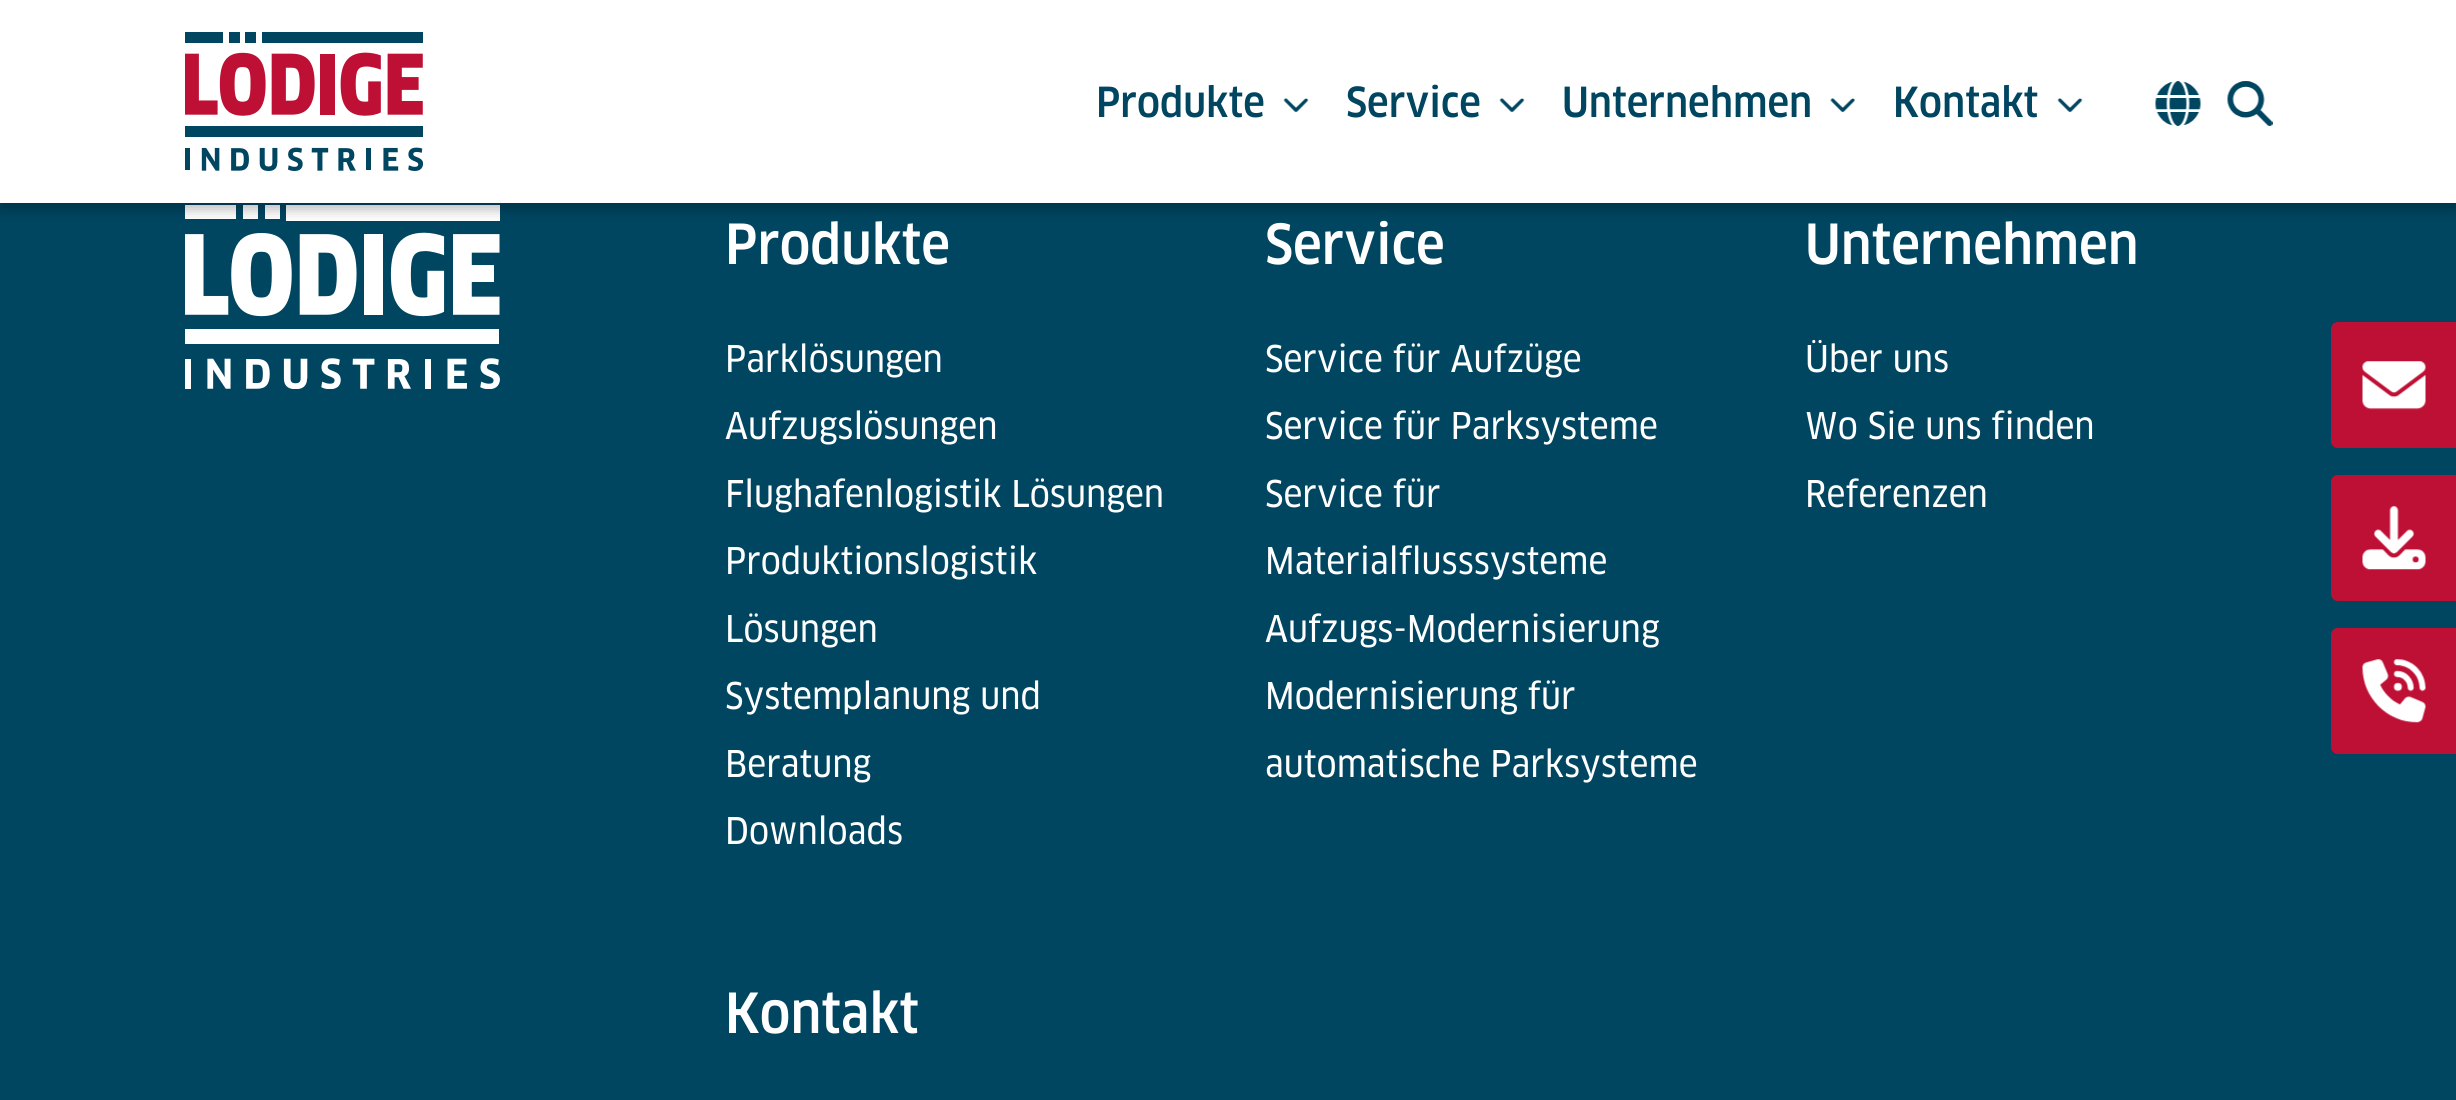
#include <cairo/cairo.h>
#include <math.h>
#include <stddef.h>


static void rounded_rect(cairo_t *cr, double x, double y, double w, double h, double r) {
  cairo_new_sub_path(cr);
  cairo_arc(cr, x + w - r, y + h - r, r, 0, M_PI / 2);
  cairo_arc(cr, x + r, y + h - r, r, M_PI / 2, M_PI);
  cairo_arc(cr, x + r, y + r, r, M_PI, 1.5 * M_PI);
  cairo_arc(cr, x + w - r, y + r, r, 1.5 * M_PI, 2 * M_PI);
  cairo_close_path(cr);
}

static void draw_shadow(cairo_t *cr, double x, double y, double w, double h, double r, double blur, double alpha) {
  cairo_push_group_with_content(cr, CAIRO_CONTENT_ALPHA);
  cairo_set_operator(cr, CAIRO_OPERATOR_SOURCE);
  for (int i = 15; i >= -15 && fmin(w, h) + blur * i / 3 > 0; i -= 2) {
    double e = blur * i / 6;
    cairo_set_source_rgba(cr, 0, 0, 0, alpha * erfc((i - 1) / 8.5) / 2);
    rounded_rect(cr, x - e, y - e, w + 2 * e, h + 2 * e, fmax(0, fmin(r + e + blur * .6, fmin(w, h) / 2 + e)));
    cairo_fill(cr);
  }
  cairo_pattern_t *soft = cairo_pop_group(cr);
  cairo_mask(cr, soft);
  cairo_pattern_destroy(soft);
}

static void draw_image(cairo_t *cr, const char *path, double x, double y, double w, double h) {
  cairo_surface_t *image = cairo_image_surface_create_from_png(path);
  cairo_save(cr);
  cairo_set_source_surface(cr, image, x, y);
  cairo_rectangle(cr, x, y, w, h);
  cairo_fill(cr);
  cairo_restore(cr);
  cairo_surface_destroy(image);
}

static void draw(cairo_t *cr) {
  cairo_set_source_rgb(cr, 0, 70 / 255.0, 97 / 255.0);
  cairo_paint(cr);
  draw_image(cr, "images/6.png", 185, 205, 315, 184);
  cairo_set_source_rgb(cr, 0, 0, 0);
  draw_shadow(cr, 0, 7, 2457, 202, 0, 7, 0.29);
  cairo_set_source_rgb(cr, 1, 1, 1);
  cairo_rectangle(cr, 0, 0, 2456, 203);
  cairo_fill(cr);
  draw_image(cr, "images/1.png", 185, 32, 238, 139);
  draw_image(cr, "images/2.png", 1283, 98, 26, 14);
  draw_image(cr, "images/2.png", 1499, 98, 26, 14);
  draw_image(cr, "images/3.png", 1830, 98, 25, 14);
  draw_image(cr, "images/2.png", 2057, 98, 26, 14);
  draw_image(cr, "images/4.png", 2155, 81, 46, 45);
  draw_image(cr, "images/5.png", 2227, 81, 46, 45);
  cairo_set_source_rgb(cr, 190 / 255.0, 15 / 255.0, 52 / 255.0);
  cairo_new_path(cr);
  cairo_move_to(cr, 2338, 322);
  cairo_line_to(cr, 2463, 322);
  cairo_line_to(cr, 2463, 448);
  cairo_line_to(cr, 2338, 448);
  cairo_curve_to(cr, 2334, 448, 2331, 445, 2331, 441);
  cairo_line_to(cr, 2331, 329);
  cairo_curve_to(cr, 2331, 325, 2334, 322, 2338, 322);
  cairo_close_path(cr);
  cairo_fill(cr);
  draw_image(cr, "images/7.png", 2362, 361, 64, 49);
  cairo_new_path(cr);
  cairo_move_to(cr, 2338, 475);
  cairo_line_to(cr, 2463, 475);
  cairo_line_to(cr, 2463, 601);
  cairo_line_to(cr, 2338, 601);
  cairo_curve_to(cr, 2334, 601, 2331, 598, 2331, 594);
  cairo_line_to(cr, 2331, 482);
  cairo_curve_to(cr, 2331, 478, 2334, 475, 2338, 475);
  cairo_close_path(cr);
  cairo_fill(cr);
  draw_image(cr, "images/8.png", 2362, 506, 64, 64);
  cairo_new_path(cr);
  cairo_move_to(cr, 2338, 628);
  cairo_line_to(cr, 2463, 628);
  cairo_line_to(cr, 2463, 754);
  cairo_line_to(cr, 2338, 754);
  cairo_curve_to(cr, 2334, 754, 2331, 751, 2331, 747);
  cairo_line_to(cr, 2331, 635);
  cairo_curve_to(cr, 2331, 631, 2334, 628, 2338, 628);
  cairo_close_path(cr);
  cairo_fill(cr);
  draw_image(cr, "images/9.png", 2362, 659, 64, 64);
  cairo_select_font_face(cr, "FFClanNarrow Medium", CAIRO_FONT_SLANT_NORMAL, CAIRO_FONT_WEIGHT_NORMAL);
  cairo_set_font_size(cr, 40.5);
  cairo_set_source_rgb(cr, 0, 70 / 255.0, 97 / 255.0);
  cairo_move_to(cr, 1096, 117);
  cairo_show_text(cr, "Produkte");
  cairo_move_to(cr, 1346, 117);
  cairo_show_text(cr, "Service");
  cairo_move_to(cr, 1562, 117);
  cairo_show_text(cr, "Unternehmen");
  cairo_move_to(cr, 1893, 117);
  cairo_show_text(cr, "Kontakt");
  cairo_set_font_size(cr, 54);
  cairo_set_source_rgb(cr, 1, 1, 1);
  cairo_move_to(cr, 725, 264);
  cairo_show_text(cr, "Produkte");
  cairo_select_font_face(cr, "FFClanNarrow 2 Medium", CAIRO_FONT_SLANT_NORMAL, CAIRO_FONT_WEIGHT_NORMAL);
  cairo_set_font_size(cr, 36);
  cairo_move_to(cr, 725, 372);
  cairo_show_text(cr, "Parklösungen");
  cairo_move_to(cr, 725, 439);
  cairo_show_text(cr, "Aufzugslösungen");
  cairo_move_to(cr, 725, 507);
  cairo_show_text(cr, "Flughafenlogistik Lösungen");
  cairo_move_to(cr, 725, 574);
  cairo_show_text(cr, "Produktionslogistik");
  cairo_move_to(cr, 725, 642);
  cairo_show_text(cr, "Lösungen");
  cairo_move_to(cr, 725, 709);
  cairo_show_text(cr, "Systemplanung und");
  cairo_move_to(cr, 725, 777);
  cairo_show_text(cr, "Beratung");
  cairo_move_to(cr, 725, 844);
  cairo_show_text(cr, "Downloads");
  cairo_select_font_face(cr, "FFClanNarrow Medium", CAIRO_FONT_SLANT_NORMAL, CAIRO_FONT_WEIGHT_NORMAL);
  cairo_set_font_size(cr, 54);
  cairo_move_to(cr, 1265, 264);
  cairo_show_text(cr, "Service");
  cairo_select_font_face(cr, "FFClanNarrow 2 Medium", CAIRO_FONT_SLANT_NORMAL, CAIRO_FONT_WEIGHT_NORMAL);
  cairo_set_font_size(cr, 36);
  cairo_move_to(cr, 1265, 372);
  cairo_show_text(cr, "Service für Aufzüge");
  cairo_move_to(cr, 1265, 439);
  cairo_show_text(cr, "Service für Parksysteme");
  cairo_move_to(cr, 1265, 507);
  cairo_show_text(cr, "Service für");
  cairo_move_to(cr, 1265, 574);
  cairo_show_text(cr, "Materialflusssysteme");
  cairo_move_to(cr, 1265, 642);
  cairo_show_text(cr, "Aufzugs-Modernisierung");
  cairo_move_to(cr, 1265, 709);
  cairo_show_text(cr, "Modernisierung für");
  cairo_move_to(cr, 1265, 777);
  cairo_show_text(cr, "automatische Parksysteme");
  cairo_select_font_face(cr, "FFClanNarrow Medium", CAIRO_FONT_SLANT_NORMAL, CAIRO_FONT_WEIGHT_NORMAL);
  cairo_set_font_size(cr, 54);
  cairo_move_to(cr, 1805, 264);
  cairo_show_text(cr, "Unternehmen");
  cairo_select_font_face(cr, "FFClanNarrow 2 Medium", CAIRO_FONT_SLANT_NORMAL, CAIRO_FONT_WEIGHT_NORMAL);
  cairo_set_font_size(cr, 36);
  cairo_move_to(cr, 1805, 372);
  cairo_show_text(cr, "Über uns");
  cairo_move_to(cr, 1805, 439);
  cairo_show_text(cr, "Wo Sie uns finden");
  cairo_move_to(cr, 1805, 507);
  cairo_show_text(cr, "Referenzen");
  cairo_select_font_face(cr, "FFClanNarrow Medium", CAIRO_FONT_SLANT_NORMAL, CAIRO_FONT_WEIGHT_NORMAL);
  cairo_set_font_size(cr, 54);
  cairo_move_to(cr, 725, 1033);
  cairo_show_text(cr, "Kontakt");
}

int main(void) {
  cairo_surface_t *surface = cairo_image_surface_create(CAIRO_FORMAT_RGB24, 2456, 1100);
  cairo_t *cr = cairo_create(surface);
  cairo_font_options_t *options = cairo_font_options_create();
  cairo_font_options_set_hint_metrics(options, CAIRO_HINT_METRICS_OFF);
  cairo_font_options_set_hint_style(options, CAIRO_HINT_STYLE_NONE);
  cairo_set_font_options(cr, options);
  cairo_set_miter_limit(cr, 4);
  draw(cr);
  cairo_surface_write_to_png(surface, "out.png");
  cairo_font_options_destroy(options);
  cairo_destroy(cr);
  cairo_surface_destroy(surface);
  return 0;
}
